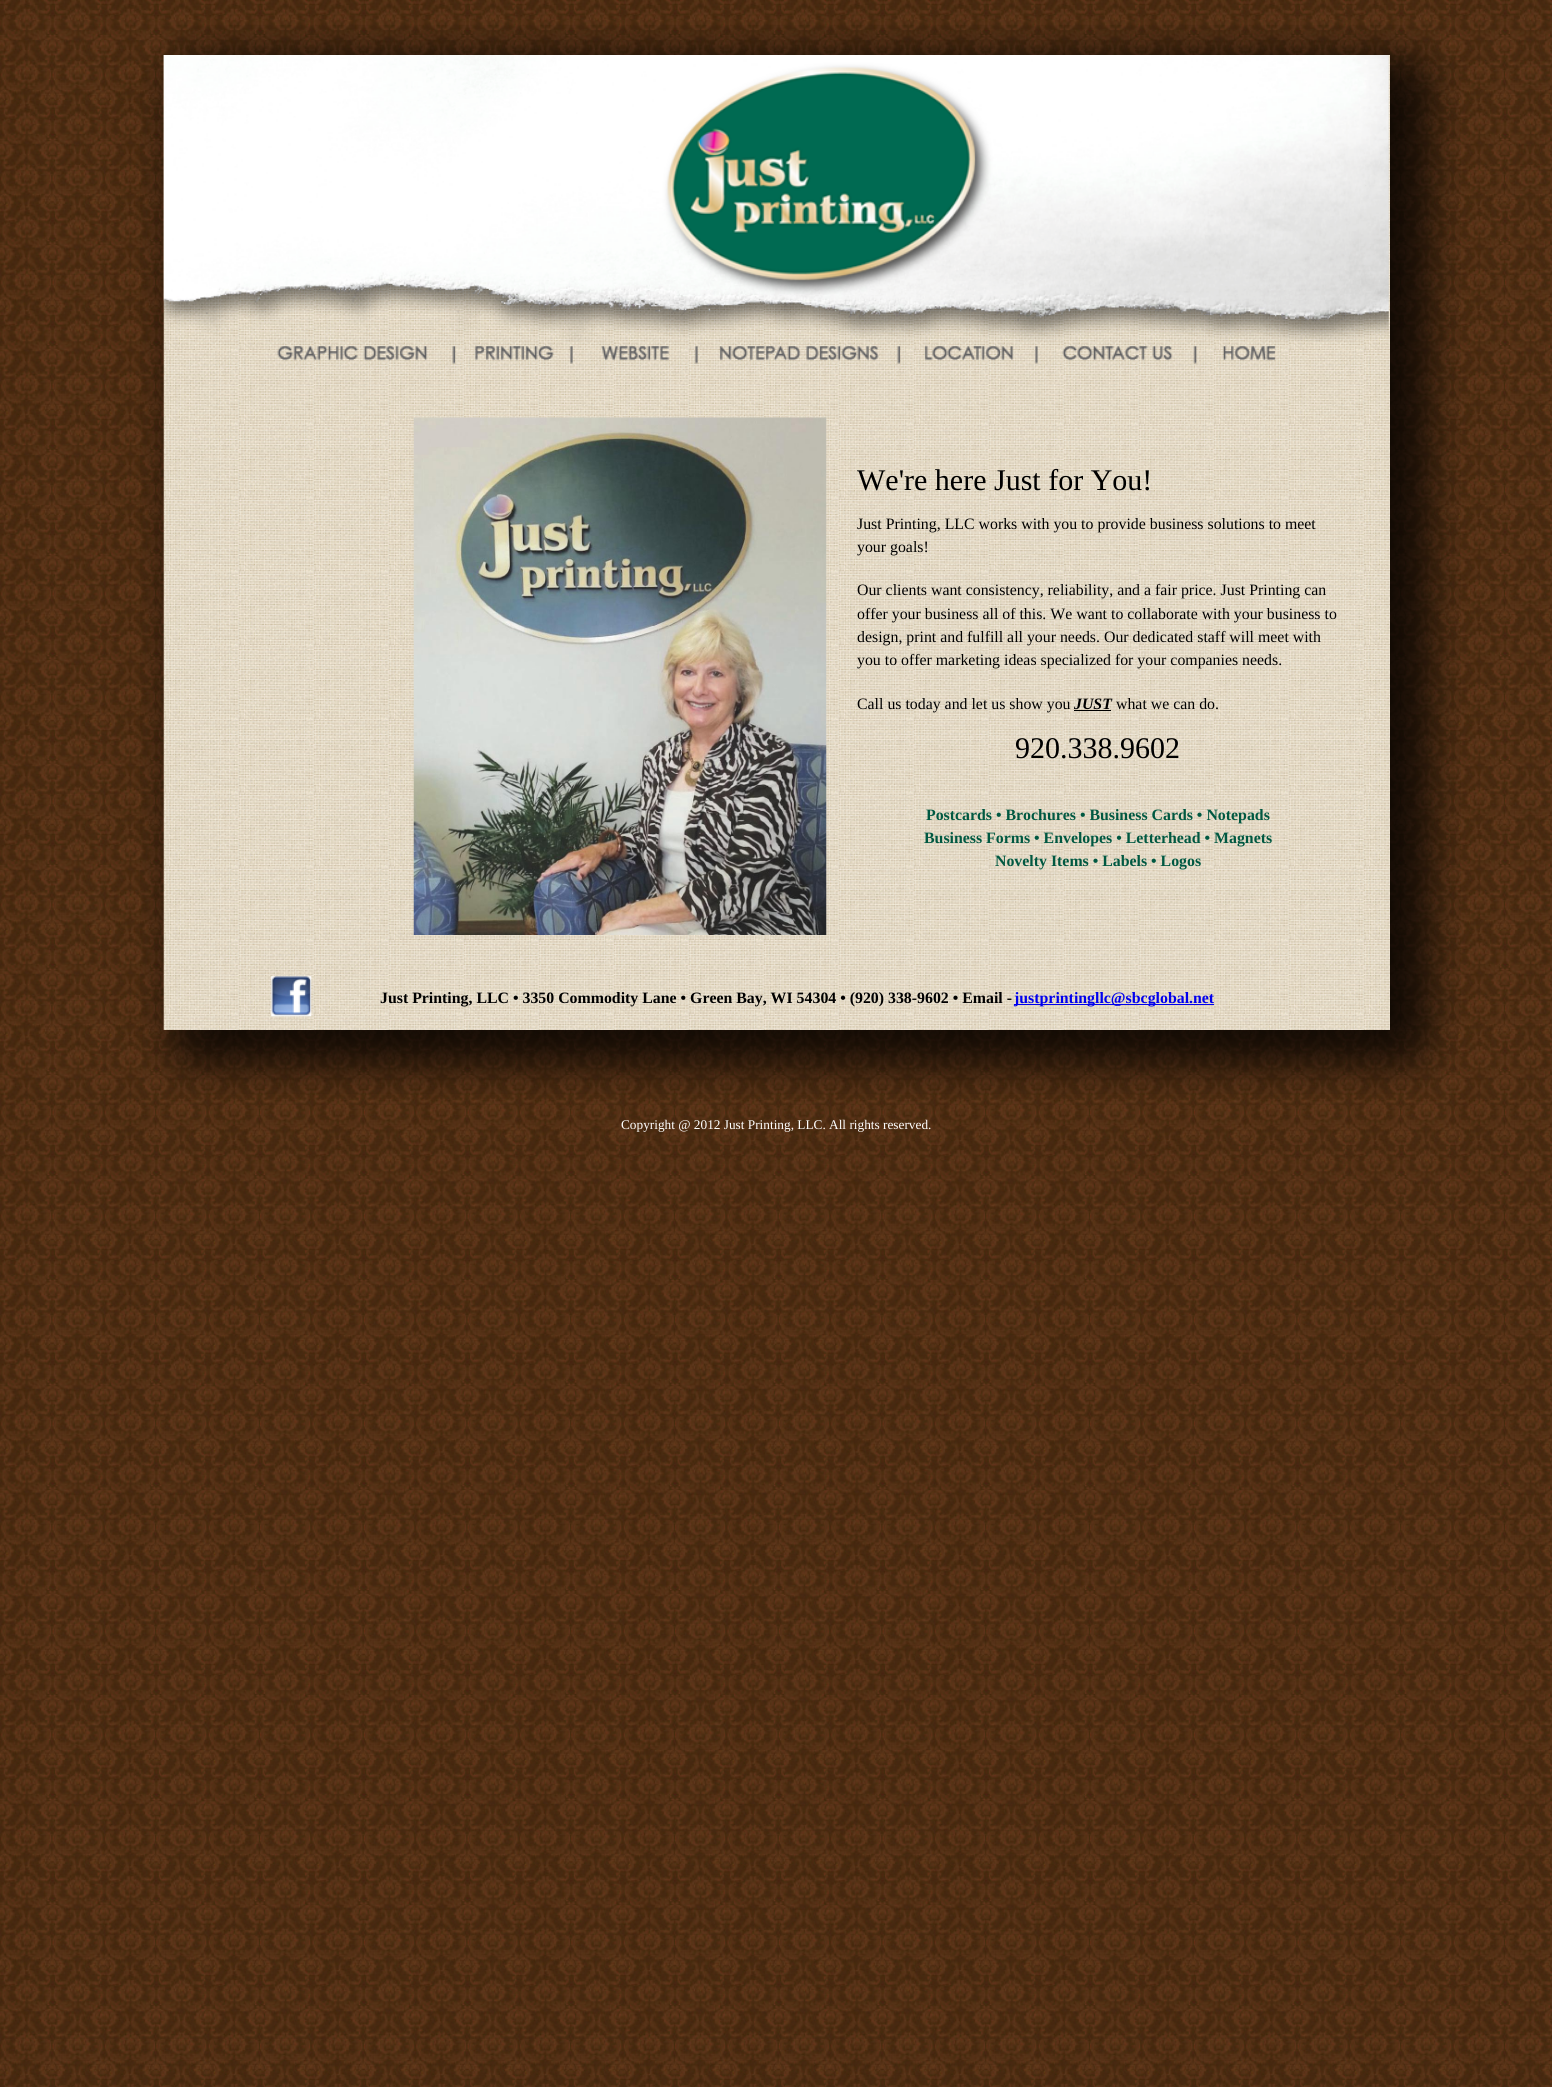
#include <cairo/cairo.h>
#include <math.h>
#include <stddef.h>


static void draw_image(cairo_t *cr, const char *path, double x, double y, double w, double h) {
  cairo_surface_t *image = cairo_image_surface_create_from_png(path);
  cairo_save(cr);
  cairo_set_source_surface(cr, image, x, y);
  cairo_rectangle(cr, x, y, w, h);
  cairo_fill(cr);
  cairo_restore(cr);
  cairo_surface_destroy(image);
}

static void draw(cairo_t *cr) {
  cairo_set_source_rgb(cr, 1, 1, 1);
  cairo_paint(cr);
  draw_image(cr, "images/1.png", 0, 0, 1552, 2087);
  draw_image(cr, "images/2.png", 150, 25, 1299, 30);
  draw_image(cr, "images/3.png", 140, 55, 24, 975);
  draw_image(cr, "images/4.png", 163, 55, 1227, 975);
  draw_image(cr, "images/5.png", 163, 55, 1226, 287);
  draw_image(cr, "images/6.png", 277, 346, 151, 15);
  draw_image(cr, "images/7.png", 452, 346, 4, 18);
  draw_image(cr, "images/8.png", 474, 346, 80, 15);
  draw_image(cr, "images/9.png", 569, 346, 4, 18);
  draw_image(cr, "images/10.png", 601, 346, 68, 15);
  draw_image(cr, "images/11.png", 694, 346, 4, 18);
  draw_image(cr, "images/12.png", 719, 346, 160, 15);
  draw_image(cr, "images/13.png", 897, 346, 4, 18);
  draw_image(cr, "images/14.png", 924, 346, 90, 15);
  draw_image(cr, "images/15.png", 1034, 346, 4, 18);
  draw_image(cr, "images/16.png", 1062, 346, 111, 15);
  draw_image(cr, "images/17.png", 1193, 346, 4, 18);
  draw_image(cr, "images/18.png", 1222, 346, 54, 15);
  draw_image(cr, "images/19.png", 413, 417, 414, 518);
  cairo_set_source_rgb(cr, 0, 0, 0);
  cairo_rectangle(cr, 1074, 710, 37, 1);
  cairo_fill(cr);
  draw_image(cr, "images/20.png", 271, 976, 41, 41);
  cairo_set_source_rgb(cr, 0, 0, 238 / 255.0);
  cairo_rectangle(cr, 1014, 1004, 200, 1);
  cairo_fill(cr);
  draw_image(cr, "images/21.png", 1390, 55, 71, 975);
  draw_image(cr, "images/22.png", 142, 1030, 1316, 64);
  cairo_select_font_face(cr, "Liberation Serif", CAIRO_FONT_SLANT_NORMAL, CAIRO_FONT_WEIGHT_NORMAL);
  cairo_set_font_size(cr, 30);
  cairo_set_source_rgb(cr, 0, 0, 0);
  cairo_move_to(cr, 857, 490);
  cairo_show_text(cr, "We're here Just for You!");
  cairo_set_font_size(cr, 15.85);
  cairo_move_to(cr, 857, 529);
  cairo_show_text(cr, "Just Printing, LLC works with you to provide business solutions to meet");
  cairo_move_to(cr, 857, 552);
  cairo_show_text(cr, "your goals!");
  cairo_move_to(cr, 857, 595);
  cairo_show_text(cr, "Our clients want consistency, reliability, and a fair price. Just Printing can");
  cairo_move_to(cr, 857, 619);
  cairo_show_text(cr, "offer your business all of this. We want to collaborate with your business to");
  cairo_move_to(cr, 857, 642);
  cairo_show_text(cr, "design, print and fulfill all your needs. Our dedicated staff will meet with");
  cairo_move_to(cr, 857, 665);
  cairo_show_text(cr, "you to offer marketing ideas specialized for your companies needs.");
  cairo_move_to(cr, 857, 709);
  cairo_show_text(cr, "Call us today and let us show you");
  cairo_select_font_face(cr, "Liberation Serif", CAIRO_FONT_SLANT_ITALIC, CAIRO_FONT_WEIGHT_BOLD);
  cairo_move_to(cr, 1074, 709);
  cairo_show_text(cr, "JUST");
  cairo_select_font_face(cr, "Liberation Serif", CAIRO_FONT_SLANT_NORMAL, CAIRO_FONT_WEIGHT_NORMAL);
  cairo_move_to(cr, 1116, 709);
  cairo_show_text(cr, "what we can do.");
  cairo_set_font_size(cr, 30);
  cairo_move_to(cr, 1015, 758);
  cairo_show_text(cr, "920.338.9602");
  cairo_select_font_face(cr, "Liberation Serif", CAIRO_FONT_SLANT_NORMAL, CAIRO_FONT_WEIGHT_BOLD);
  cairo_set_font_size(cr, 15.85);
  cairo_set_source_rgb(cr, 0, 88 / 255.0, 65 / 255.0);
  cairo_move_to(cr, 926, 820);
  cairo_show_text(cr, "Postcards • Brochures • Business Cards • Notepads");
  cairo_move_to(cr, 924, 843);
  cairo_show_text(cr, "Business Forms • Envelopes • Letterhead • Magnets");
  cairo_move_to(cr, 995, 866);
  cairo_show_text(cr, "Novelty Items • Labels • Logos");
  cairo_set_source_rgb(cr, 0, 0, 0);
  cairo_move_to(cr, 380, 1003);
  cairo_show_text(cr, "Just Printing, LLC • 3350 Commodity Lane • Green Bay, WI 54304 • (920) 338-9602 • Email -");
  cairo_set_source_rgb(cr, 0, 0, 238 / 255.0);
  cairo_move_to(cr, 1014, 1003);
  cairo_show_text(cr, "justprintingllc@sbcglobal.net");
  cairo_select_font_face(cr, "Liberation Serif", CAIRO_FONT_SLANT_NORMAL, CAIRO_FONT_WEIGHT_NORMAL);
  cairo_set_font_size(cr, 13.3);
  cairo_set_source_rgb(cr, 1, 1, 1);
  cairo_move_to(cr, 621, 1129);
  cairo_show_text(cr, "Copyright @ 2012 Just Printing, LLC. All rights reserved.");
}

int main(void) {
  cairo_surface_t *surface = cairo_image_surface_create(CAIRO_FORMAT_RGB24, 1552, 2087);
  cairo_t *cr = cairo_create(surface);
  cairo_font_options_t *options = cairo_font_options_create();
  cairo_font_options_set_hint_metrics(options, CAIRO_HINT_METRICS_OFF);
  cairo_font_options_set_hint_style(options, CAIRO_HINT_STYLE_NONE);
  cairo_set_font_options(cr, options);
  cairo_set_miter_limit(cr, 4);
  draw(cr);
  cairo_surface_write_to_png(surface, "out.png");
  cairo_font_options_destroy(options);
  cairo_destroy(cr);
  cairo_surface_destroy(surface);
  return 0;
}
